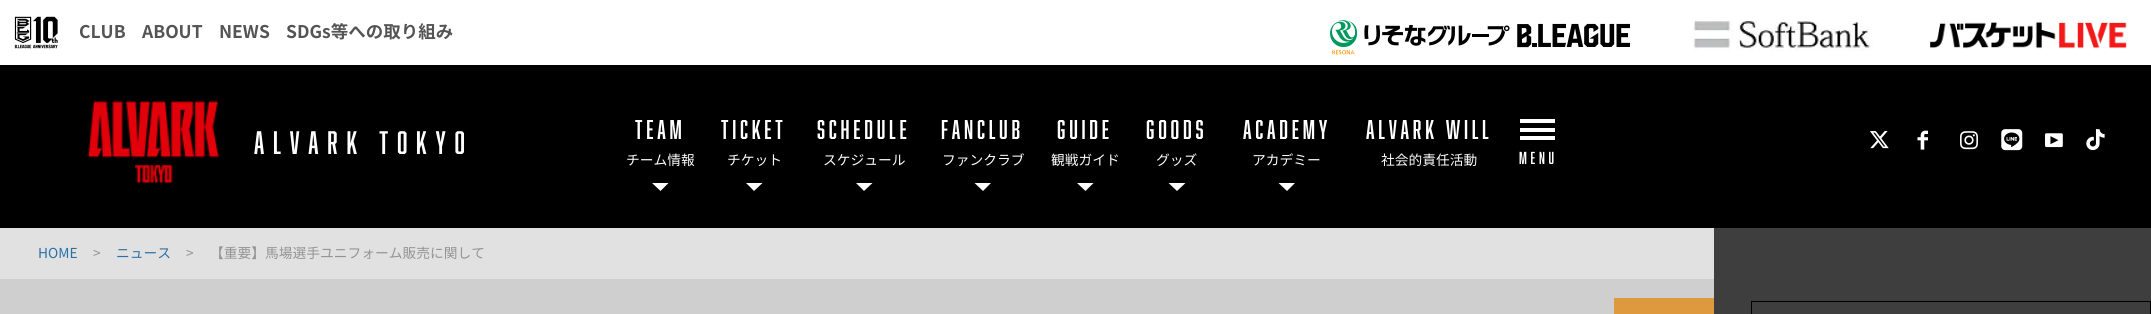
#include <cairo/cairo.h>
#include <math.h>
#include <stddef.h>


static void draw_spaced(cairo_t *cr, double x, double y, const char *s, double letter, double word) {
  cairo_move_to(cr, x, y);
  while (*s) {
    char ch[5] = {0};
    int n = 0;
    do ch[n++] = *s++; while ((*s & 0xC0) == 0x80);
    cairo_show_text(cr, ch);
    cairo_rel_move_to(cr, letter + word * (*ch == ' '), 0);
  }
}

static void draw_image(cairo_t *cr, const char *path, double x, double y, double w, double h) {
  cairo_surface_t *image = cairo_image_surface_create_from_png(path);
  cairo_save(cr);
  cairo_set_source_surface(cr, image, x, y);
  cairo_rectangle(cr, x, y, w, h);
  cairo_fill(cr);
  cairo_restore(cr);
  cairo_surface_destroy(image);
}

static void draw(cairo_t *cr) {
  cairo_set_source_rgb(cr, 1, 1, 1);
  cairo_paint(cr);
  draw_image(cr, "images/1.png", 14, 16, 44, 33);
  draw_image(cr, "images/2.png", 1330, 20, 300, 35);
  draw_image(cr, "images/3.png", 1693, 21, 180, 30);
  draw_image(cr, "images/4.png", 1930, 22, 197, 27);
  cairo_set_source_rgb(cr, 0, 0, 0);
  cairo_rectangle(cr, 0, 65, 2151, 163);
  cairo_fill(cr);
  draw_image(cr, "images/5.png", 88, 101, 131, 82);
  cairo_set_source_rgb(cr, 1, 1, 1);
  cairo_new_path(cr);
  cairo_move_to(cr, 660.5, 173.5);
  cairo_line_to(cr, 669, 182.5);
  cairo_line_to(cr, 660.5, 191);
  cairo_line_to(cr, 651.5, 182.5);
  cairo_close_path(cr);
  cairo_fill(cr);
  cairo_set_source_rgb(cr, 0, 0, 0);
  cairo_rectangle(cr, 651, 173, 18, 10);
  cairo_fill(cr);
  cairo_set_source_rgb(cr, 1, 1, 1);
  cairo_new_path(cr);
  cairo_move_to(cr, 754, 173.5);
  cairo_line_to(cr, 763, 182.5);
  cairo_line_to(cr, 754, 191);
  cairo_line_to(cr, 745.5, 182.5);
  cairo_close_path(cr);
  cairo_fill(cr);
  cairo_set_source_rgb(cr, 0, 0, 0);
  cairo_rectangle(cr, 745, 173, 18, 10);
  cairo_fill(cr);
  cairo_set_source_rgb(cr, 1, 1, 1);
  cairo_new_path(cr);
  cairo_move_to(cr, 864, 173.5);
  cairo_line_to(cr, 873, 182.5);
  cairo_line_to(cr, 864, 191);
  cairo_line_to(cr, 855.5, 182.5);
  cairo_close_path(cr);
  cairo_fill(cr);
  cairo_set_source_rgb(cr, 0, 0, 0);
  cairo_rectangle(cr, 855, 173, 18, 10);
  cairo_fill(cr);
  cairo_set_source_rgb(cr, 1, 1, 1);
  cairo_new_path(cr);
  cairo_move_to(cr, 983, 173.5);
  cairo_line_to(cr, 991.5, 182.5);
  cairo_line_to(cr, 983, 191);
  cairo_line_to(cr, 974, 182.5);
  cairo_close_path(cr);
  cairo_fill(cr);
  cairo_set_source_rgb(cr, 0, 0, 0);
  cairo_rectangle(cr, 974, 173, 18, 10);
  cairo_fill(cr);
  cairo_set_source_rgb(cr, 1, 1, 1);
  cairo_new_path(cr);
  cairo_move_to(cr, 1085.5, 173.5);
  cairo_line_to(cr, 1094, 182.5);
  cairo_line_to(cr, 1085.5, 191);
  cairo_line_to(cr, 1076.5, 182.5);
  cairo_close_path(cr);
  cairo_fill(cr);
  cairo_set_source_rgb(cr, 0, 0, 0);
  cairo_rectangle(cr, 1076, 173, 18, 10);
  cairo_fill(cr);
  cairo_set_source_rgb(cr, 1, 1, 1);
  cairo_new_path(cr);
  cairo_move_to(cr, 1177, 173.5);
  cairo_line_to(cr, 1186, 182.5);
  cairo_line_to(cr, 1177, 191);
  cairo_line_to(cr, 1168, 182.5);
  cairo_close_path(cr);
  cairo_fill(cr);
  cairo_set_source_rgb(cr, 0, 0, 0);
  cairo_rectangle(cr, 1168, 173, 18, 10);
  cairo_fill(cr);
  cairo_set_source_rgb(cr, 1, 1, 1);
  cairo_new_path(cr);
  cairo_move_to(cr, 1287, 173.5);
  cairo_line_to(cr, 1295.5, 182.5);
  cairo_line_to(cr, 1287, 191);
  cairo_line_to(cr, 1278, 182.5);
  cairo_close_path(cr);
  cairo_fill(cr);
  cairo_set_source_rgb(cr, 0, 0, 0);
  cairo_rectangle(cr, 1278, 173, 18, 10);
  cairo_fill(cr);
  cairo_set_source_rgb(cr, 1, 1, 1);
  cairo_rectangle(cr, 1520, 119, 35, 4);
  cairo_fill(cr);
  cairo_rectangle(cr, 1520, 128, 35, 4);
  cairo_fill(cr);
  cairo_rectangle(cr, 1520, 136, 35, 4);
  cairo_fill(cr);
  draw_image(cr, "images/6.png", 1870, 131, 19, 18);
  draw_image(cr, "images/7.png", 1917, 130, 11, 20);
  draw_image(cr, "images/8.png", 1960, 131, 18, 19);
  draw_image(cr, "images/9.png", 2001, 129, 22, 22);
  draw_image(cr, "images/10.png", 2045, 133, 18, 15);
  draw_image(cr, "images/11.png", 2086, 129, 19, 22);
  cairo_set_source_rgb(cr, 62 / 255.0, 62 / 255.0, 62 / 255.0);
  cairo_rectangle(cr, 1714, 228, 437, 86);
  cairo_fill(cr);
  cairo_set_source_rgb(cr, 207 / 255.0, 207 / 255.0, 207 / 255.0);
  cairo_rectangle(cr, 0, 279, 1714, 35);
  cairo_fill(cr);
  cairo_set_source_rgb(cr, 225 / 255.0, 225 / 255.0, 226 / 255.0);
  cairo_rectangle(cr, 0, 228, 1714, 51);
  cairo_fill(cr);
  cairo_set_source_rgb(cr, 222 / 255.0, 153 / 255.0, 63 / 255.0);
  cairo_rectangle(cr, 1614, 298, 100, 16);
  cairo_fill(cr);
  cairo_rectangle(cr, 1751.5, 301.5, 399, 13);
  cairo_set_source_rgb(cr, 0, 0, 0);
  cairo_set_line_width(cr, 1);
  cairo_stroke(cr);
  cairo_select_font_face(cr, "Noto Sans CJK JP", CAIRO_FONT_SLANT_NORMAL, CAIRO_FONT_WEIGHT_BOLD);
  cairo_set_font_size(cr, 17.5);
  cairo_set_source_rgb(cr, 84 / 255.0, 84 / 255.0, 84 / 255.0);
  cairo_move_to(cr, 79, 38);
  cairo_show_text(cr, "CLUB");
  cairo_move_to(cr, 142, 38);
  cairo_show_text(cr, "ABOUT");
  cairo_move_to(cr, 219, 38);
  cairo_show_text(cr, "NEWS");
  cairo_move_to(cr, 286, 38);
  cairo_show_text(cr, "SDGs等への取り組み");
  cairo_select_font_face(cr, "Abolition", CAIRO_FONT_SLANT_NORMAL, CAIRO_FONT_WEIGHT_NORMAL);
  cairo_set_font_size(cr, 30);
  cairo_set_source_rgb(cr, 1, 1, 1);
  draw_spaced(cr, 254, 154, "ALVARK TOKYO", 8.75, 0);
  cairo_set_font_size(cr, 25);
  draw_spaced(cr, 635, 139, "TEAM", 3.75, 0);
  cairo_select_font_face(cr, "Noto Sans CJK JP", CAIRO_FONT_SLANT_NORMAL, CAIRO_FONT_WEIGHT_NORMAL);
  cairo_set_font_size(cr, 13.75);
  cairo_move_to(cr, 626, 165);
  cairo_show_text(cr, "チーム情報");
  cairo_select_font_face(cr, "Abolition", CAIRO_FONT_SLANT_NORMAL, CAIRO_FONT_WEIGHT_NORMAL);
  cairo_set_font_size(cr, 25);
  draw_spaced(cr, 721, 139, "TICKET", 3.75, 0);
  cairo_select_font_face(cr, "Noto Sans CJK JP", CAIRO_FONT_SLANT_NORMAL, CAIRO_FONT_WEIGHT_NORMAL);
  cairo_set_font_size(cr, 13.75);
  cairo_move_to(cr, 727, 165);
  cairo_show_text(cr, "チケット");
  cairo_select_font_face(cr, "Abolition", CAIRO_FONT_SLANT_NORMAL, CAIRO_FONT_WEIGHT_NORMAL);
  cairo_set_font_size(cr, 25);
  draw_spaced(cr, 817, 139, "SCHEDULE", 3.75, 0);
  cairo_select_font_face(cr, "Noto Sans CJK JP", CAIRO_FONT_SLANT_NORMAL, CAIRO_FONT_WEIGHT_NORMAL);
  cairo_set_font_size(cr, 13.75);
  cairo_move_to(cr, 823, 165);
  cairo_show_text(cr, "スケジュール");
  cairo_select_font_face(cr, "Abolition", CAIRO_FONT_SLANT_NORMAL, CAIRO_FONT_WEIGHT_NORMAL);
  cairo_set_font_size(cr, 25);
  draw_spaced(cr, 941, 139, "FANCLUB", 3.75, 0);
  cairo_select_font_face(cr, "Noto Sans CJK JP", CAIRO_FONT_SLANT_NORMAL, CAIRO_FONT_WEIGHT_NORMAL);
  cairo_set_font_size(cr, 13.75);
  cairo_move_to(cr, 942, 165);
  cairo_show_text(cr, "ファンクラブ");
  cairo_select_font_face(cr, "Abolition", CAIRO_FONT_SLANT_NORMAL, CAIRO_FONT_WEIGHT_NORMAL);
  cairo_set_font_size(cr, 25);
  draw_spaced(cr, 1057, 139, "GUIDE", 3.75, 0);
  cairo_select_font_face(cr, "Noto Sans CJK JP", CAIRO_FONT_SLANT_NORMAL, CAIRO_FONT_WEIGHT_NORMAL);
  cairo_set_font_size(cr, 13.75);
  cairo_move_to(cr, 1051, 165);
  cairo_show_text(cr, "観戦ガイド");
  cairo_select_font_face(cr, "Abolition", CAIRO_FONT_SLANT_NORMAL, CAIRO_FONT_WEIGHT_NORMAL);
  cairo_set_font_size(cr, 25);
  draw_spaced(cr, 1146, 139, "GOODS", 3.75, 0);
  cairo_select_font_face(cr, "Noto Sans CJK JP", CAIRO_FONT_SLANT_NORMAL, CAIRO_FONT_WEIGHT_NORMAL);
  cairo_set_font_size(cr, 13.75);
  cairo_move_to(cr, 1156, 165);
  cairo_show_text(cr, "グッズ");
  cairo_select_font_face(cr, "Abolition", CAIRO_FONT_SLANT_NORMAL, CAIRO_FONT_WEIGHT_NORMAL);
  cairo_set_font_size(cr, 25);
  draw_spaced(cr, 1243, 139, "ACADEMY", 3.75, 0);
  cairo_select_font_face(cr, "Noto Sans CJK JP", CAIRO_FONT_SLANT_NORMAL, CAIRO_FONT_WEIGHT_NORMAL);
  cairo_set_font_size(cr, 13.75);
  cairo_move_to(cr, 1252, 165);
  cairo_show_text(cr, "アカデミー");
  cairo_select_font_face(cr, "Abolition", CAIRO_FONT_SLANT_NORMAL, CAIRO_FONT_WEIGHT_NORMAL);
  cairo_set_font_size(cr, 25);
  draw_spaced(cr, 1366, 139, "ALVARK Will", 3.75, 0);
  cairo_select_font_face(cr, "Noto Sans CJK JP", CAIRO_FONT_SLANT_NORMAL, CAIRO_FONT_WEIGHT_NORMAL);
  cairo_set_font_size(cr, 13.75);
  cairo_move_to(cr, 1381, 165);
  cairo_show_text(cr, "社会的責任活動");
  cairo_select_font_face(cr, "Abolition", CAIRO_FONT_SLANT_NORMAL, CAIRO_FONT_WEIGHT_NORMAL);
  cairo_set_font_size(cr, 16);
  draw_spaced(cr, 1519, 164, "MENU", 3.75, 0);
  cairo_select_font_face(cr, "Noto Sans CJK JP", CAIRO_FONT_SLANT_NORMAL, CAIRO_FONT_WEIGHT_NORMAL);
  cairo_set_font_size(cr, 13.75);
  cairo_set_source_rgb(cr, 41 / 255.0, 113 / 255.0, 167 / 255.0);
  cairo_move_to(cr, 38, 258);
  cairo_show_text(cr, "HOME");
  cairo_set_source_rgb(cr, 147 / 255.0, 147 / 255.0, 147 / 255.0);
  cairo_move_to(cr, 93, 258);
  cairo_show_text(cr, ">");
  cairo_set_source_rgb(cr, 41 / 255.0, 113 / 255.0, 167 / 255.0);
  cairo_move_to(cr, 116, 258);
  cairo_show_text(cr, "ニュース");
  cairo_set_source_rgb(cr, 147 / 255.0, 147 / 255.0, 147 / 255.0);
  cairo_move_to(cr, 186, 258);
  cairo_show_text(cr, ">");
  cairo_move_to(cr, 210, 258);
  cairo_show_text(cr, "【重要】馬場選手ユニフォーム販売に関して");
}

int main(void) {
  cairo_surface_t *surface = cairo_image_surface_create(CAIRO_FORMAT_RGB24, 2151, 314);
  cairo_t *cr = cairo_create(surface);
  cairo_font_options_t *options = cairo_font_options_create();
  cairo_font_options_set_hint_metrics(options, CAIRO_HINT_METRICS_OFF);
  cairo_font_options_set_hint_style(options, CAIRO_HINT_STYLE_NONE);
  cairo_set_font_options(cr, options);
  cairo_set_miter_limit(cr, 4);
  draw(cr);
  cairo_surface_write_to_png(surface, "out.png");
  cairo_font_options_destroy(options);
  cairo_destroy(cr);
  cairo_surface_destroy(surface);
  return 0;
}
